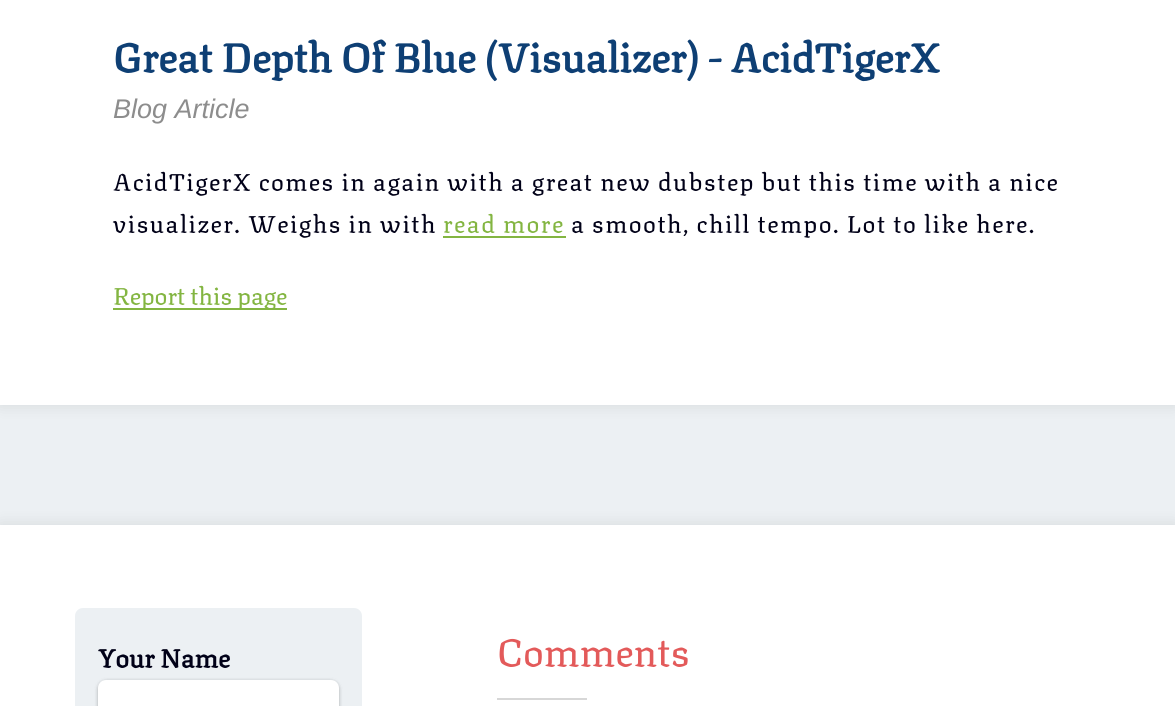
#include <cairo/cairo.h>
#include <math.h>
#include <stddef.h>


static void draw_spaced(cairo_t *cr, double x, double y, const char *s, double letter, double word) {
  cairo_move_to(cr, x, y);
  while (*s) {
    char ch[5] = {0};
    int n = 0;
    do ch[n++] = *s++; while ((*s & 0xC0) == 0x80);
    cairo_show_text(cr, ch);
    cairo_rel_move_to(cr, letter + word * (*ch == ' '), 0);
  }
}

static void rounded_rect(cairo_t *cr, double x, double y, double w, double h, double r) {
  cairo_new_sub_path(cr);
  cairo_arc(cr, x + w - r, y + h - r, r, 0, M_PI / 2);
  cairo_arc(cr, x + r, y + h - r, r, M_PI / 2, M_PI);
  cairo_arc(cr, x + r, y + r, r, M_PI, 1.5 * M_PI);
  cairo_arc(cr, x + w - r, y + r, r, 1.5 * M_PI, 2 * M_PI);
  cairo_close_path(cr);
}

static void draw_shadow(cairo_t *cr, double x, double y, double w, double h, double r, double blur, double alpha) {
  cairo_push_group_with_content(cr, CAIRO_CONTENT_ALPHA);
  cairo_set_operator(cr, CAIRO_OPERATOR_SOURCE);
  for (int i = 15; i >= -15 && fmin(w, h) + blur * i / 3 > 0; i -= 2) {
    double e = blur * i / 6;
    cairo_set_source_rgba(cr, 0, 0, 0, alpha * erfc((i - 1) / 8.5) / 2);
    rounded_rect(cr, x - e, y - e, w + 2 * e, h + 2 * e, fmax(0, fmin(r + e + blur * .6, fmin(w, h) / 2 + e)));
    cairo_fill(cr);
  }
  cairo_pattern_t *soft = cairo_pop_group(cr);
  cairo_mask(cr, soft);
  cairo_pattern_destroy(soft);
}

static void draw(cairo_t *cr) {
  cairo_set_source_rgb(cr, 236 / 255.0, 240 / 255.0, 243 / 255.0);
  cairo_paint(cr);
  cairo_set_source_rgb(cr, 0, 0, 0);
  draw_shadow(cr, 0, -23, 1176, 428, 0, 7.5, 0.1);
  cairo_set_source_rgb(cr, 1, 1, 1);
  cairo_rectangle(cr, 0, 0, 1175, 405);
  cairo_fill(cr);
  cairo_set_source_rgb(cr, 131 / 255.0, 181 / 255.0, 65 / 255.0);
  cairo_rectangle(cr, 443, 236, 123, 2);
  cairo_fill(cr);
  cairo_rectangle(cr, 113, 308, 174, 2);
  cairo_fill(cr);
  cairo_set_source_rgb(cr, 0, 0, 0);
  draw_shadow(cr, 0, 525, 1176, 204, 0, 7.5, 0.1);
  cairo_set_source_rgb(cr, 1, 1, 1);
  cairo_rectangle(cr, 0, 525, 1175, 181);
  cairo_fill(cr);
  cairo_set_source_rgb(cr, 236 / 255.0, 240 / 255.0, 243 / 255.0);
  rounded_rect(cr, 75, 608, 287, 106, 8);
  cairo_fill(cr);
  cairo_set_source_rgb(cr, 0, 0, 0);
  draw_shadow(cr, 98, 681, 241, 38, 8, 1.5, 0.1);
  draw_shadow(cr, 98, 681, 241, 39, 8, 2, 0.2);
  cairo_set_source_rgb(cr, 1, 1, 1);
  rounded_rect(cr, 98, 680, 241, 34, 8);
  cairo_fill(cr);
  cairo_set_source_rgb(cr, 215 / 255.0, 215 / 255.0, 215 / 255.0);
  cairo_rectangle(cr, 497, 698, 90, 2);
  cairo_fill(cr);
  cairo_select_font_face(cr, "Texturina", CAIRO_FONT_SLANT_NORMAL, CAIRO_FONT_WEIGHT_BOLD);
  cairo_set_font_size(cr, 40.5);
  cairo_set_source_rgb(cr, 14 / 255.0, 63 / 255.0, 116 / 255.0);
  cairo_move_to(cr, 113, 73);
  cairo_show_text(cr, "Great Depth Of Blue (Visualizer) - AcidTigerX");
  cairo_select_font_face(cr, "Liberation Sans", CAIRO_FONT_SLANT_ITALIC, CAIRO_FONT_WEIGHT_NORMAL);
  cairo_set_font_size(cr, 27);
  cairo_set_source_rgb(cr, 141 / 255.0, 141 / 255.0, 141 / 255.0);
  cairo_move_to(cr, 113, 118);
  cairo_show_text(cr, "Blog Article");
  cairo_select_font_face(cr, "Texturina Medium", CAIRO_FONT_SLANT_NORMAL, CAIRO_FONT_WEIGHT_NORMAL);
  cairo_set_font_size(cr, 24);
  cairo_set_source_rgb(cr, 1 / 255.0, 1 / 255.0, 24 / 255.0);
  draw_spaced(cr, 113, 191, "AcidTigerX comes in again with a great new dubstep but this time with a nice", 1.5, 0);
  draw_spaced(cr, 113, 233, "visualizer. Weighs in with", 1.5, 0);
  cairo_set_source_rgb(cr, 131 / 255.0, 181 / 255.0, 65 / 255.0);
  draw_spaced(cr, 443, 233, "read more", 1.5, 0);
  cairo_set_source_rgb(cr, 1 / 255.0, 1 / 255.0, 24 / 255.0);
  draw_spaced(cr, 571, 233, "a smooth, chill tempo. Lot to like here.", 1.5, 0);
  cairo_set_source_rgb(cr, 131 / 255.0, 181 / 255.0, 65 / 255.0);
  cairo_move_to(cr, 113, 305);
  cairo_show_text(cr, "Report this page");
  cairo_select_font_face(cr, "Texturina", CAIRO_FONT_SLANT_NORMAL, CAIRO_FONT_WEIGHT_BOLD);
  cairo_set_font_size(cr, 25.75);
  cairo_set_source_rgb(cr, 1 / 255.0, 1 / 255.0, 24 / 255.0);
  cairo_move_to(cr, 98, 668);
  cairo_show_text(cr, "Your Name");
  cairo_select_font_face(cr, "Texturina Medium", CAIRO_FONT_SLANT_NORMAL, CAIRO_FONT_WEIGHT_NORMAL);
  cairo_set_font_size(cr, 39);
  cairo_set_source_rgb(cr, 227 / 255.0, 90 / 255.0, 90 / 255.0);
  cairo_move_to(cr, 497, 667);
  cairo_show_text(cr, "Comments");
}

int main(void) {
  cairo_surface_t *surface = cairo_image_surface_create(CAIRO_FORMAT_RGB24, 1175, 706);
  cairo_t *cr = cairo_create(surface);
  cairo_font_options_t *options = cairo_font_options_create();
  cairo_font_options_set_hint_metrics(options, CAIRO_HINT_METRICS_OFF);
  cairo_font_options_set_hint_style(options, CAIRO_HINT_STYLE_NONE);
  cairo_set_font_options(cr, options);
  cairo_set_miter_limit(cr, 4);
  draw(cr);
  cairo_surface_write_to_png(surface, "out.png");
  cairo_font_options_destroy(options);
  cairo_destroy(cr);
  cairo_surface_destroy(surface);
  return 0;
}
